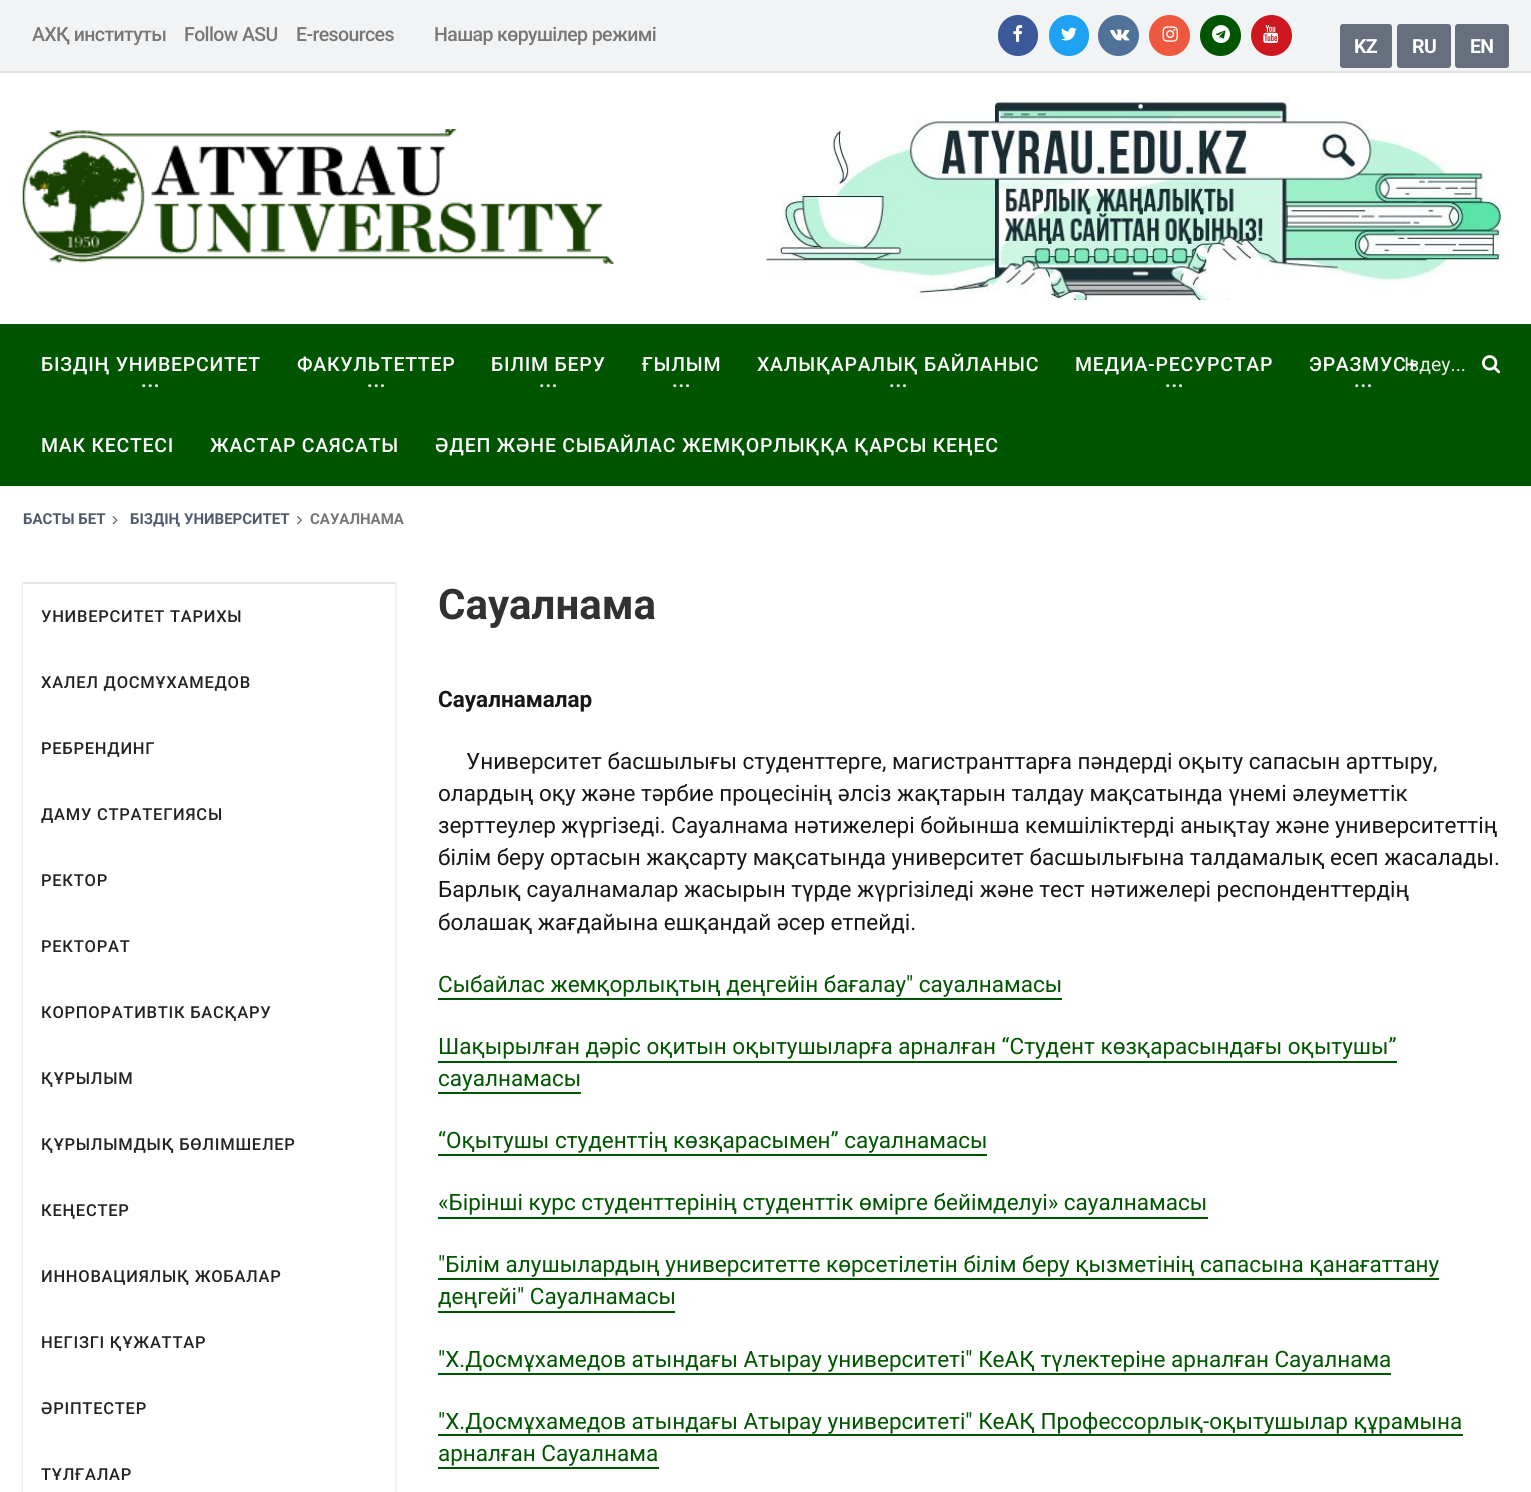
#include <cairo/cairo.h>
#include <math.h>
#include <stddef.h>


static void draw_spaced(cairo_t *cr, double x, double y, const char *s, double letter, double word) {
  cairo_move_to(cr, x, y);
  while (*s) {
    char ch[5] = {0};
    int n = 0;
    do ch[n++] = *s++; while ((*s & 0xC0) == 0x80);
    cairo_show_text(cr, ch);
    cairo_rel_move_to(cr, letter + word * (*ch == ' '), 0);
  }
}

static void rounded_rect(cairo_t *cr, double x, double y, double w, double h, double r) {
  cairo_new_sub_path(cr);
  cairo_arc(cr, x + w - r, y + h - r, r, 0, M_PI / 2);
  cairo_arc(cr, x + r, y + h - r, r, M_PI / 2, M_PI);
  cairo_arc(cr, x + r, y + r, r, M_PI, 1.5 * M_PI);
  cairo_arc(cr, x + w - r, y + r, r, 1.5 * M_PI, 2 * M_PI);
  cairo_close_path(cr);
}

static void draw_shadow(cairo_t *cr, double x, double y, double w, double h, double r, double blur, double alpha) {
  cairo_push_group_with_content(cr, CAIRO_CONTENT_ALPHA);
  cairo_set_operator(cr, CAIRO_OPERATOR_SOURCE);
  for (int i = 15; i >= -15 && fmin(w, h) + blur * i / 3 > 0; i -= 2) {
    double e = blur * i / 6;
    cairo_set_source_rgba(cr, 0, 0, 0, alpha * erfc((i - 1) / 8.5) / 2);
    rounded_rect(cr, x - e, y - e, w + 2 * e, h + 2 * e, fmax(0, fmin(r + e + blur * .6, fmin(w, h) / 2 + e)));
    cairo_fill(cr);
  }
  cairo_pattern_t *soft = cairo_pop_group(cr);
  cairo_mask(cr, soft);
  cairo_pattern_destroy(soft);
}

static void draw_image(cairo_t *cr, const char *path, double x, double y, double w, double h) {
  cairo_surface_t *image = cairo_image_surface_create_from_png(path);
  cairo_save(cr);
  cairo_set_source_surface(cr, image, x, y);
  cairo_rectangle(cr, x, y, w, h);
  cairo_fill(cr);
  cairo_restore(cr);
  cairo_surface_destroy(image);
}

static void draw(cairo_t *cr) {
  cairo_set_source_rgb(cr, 1, 1, 1);
  cairo_paint(cr);
  cairo_set_source_rgb(cr, 242 / 255.0, 243 / 255.0, 245 / 255.0);
  cairo_rectangle(cr, 0, 0, 1531, 71);
  cairo_fill(cr);
  cairo_set_source_rgb(cr, 228 / 255.0, 227 / 255.0, 226 / 255.0);
  cairo_rectangle(cr, 0, 71, 1531, 2);
  cairo_fill(cr);
  cairo_set_source_rgb(cr, 59 / 255.0, 89 / 255.0, 152 / 255.0);
  rounded_rect(cr, 998, 15, 40, 41, 20);
  cairo_fill(cr);
  draw_image(cr, "images/1.png", 1013, 25, 10, 17);
  cairo_set_source_rgb(cr, 29 / 255.0, 161 / 255.0, 242 / 255.0);
  rounded_rect(cr, 1049, 15, 40, 41, 20);
  cairo_fill(cr);
  draw_image(cr, "images/2.png", 1061, 27, 16, 14);
  cairo_set_source_rgb(cr, 80 / 255.0, 114 / 255.0, 153 / 255.0);
  cairo_arc(cr, 1118.5, 35.5, 20.5, 0, 2 * M_PI);
  cairo_fill(cr);
  draw_image(cr, "images/3.png", 1110, 29, 20, 12);
  cairo_set_source_rgb(cr, 238 / 255.0, 88 / 255.0, 63 / 255.0);
  cairo_arc(cr, 1169.5, 35.5, 20.5, 0, 2 * M_PI);
  cairo_fill(cr);
  draw_image(cr, "images/4.png", 1162, 26, 16, 16);
  cairo_set_source_rgb(cr, 0, 85 / 255.0, 0);
  cairo_arc(cr, 1220.5, 35.5, 20.5, 0, 2 * M_PI);
  cairo_fill(cr);
  draw_image(cr, "images/5.png", 1212, 25, 18, 19);
  cairo_set_source_rgb(cr, 204 / 255.0, 24 / 255.0, 30 / 255.0);
  cairo_arc(cr, 1271.5, 35.5, 20.5, 0, 2 * M_PI);
  cairo_fill(cr);
  draw_image(cr, "images/6.png", 1263, 25, 16, 19);
  cairo_set_source_rgb(cr, 103 / 255.0, 110 / 255.0, 125 / 255.0);
  rounded_rect(cr, 1340, 24, 52, 44, 3);
  cairo_fill(cr);
  rounded_rect(cr, 1397, 24, 54, 44, 3);
  cairo_fill(cr);
  rounded_rect(cr, 1455, 24, 54, 44, 3);
  cairo_fill(cr);
  draw_image(cr, "images/7.png", 22, 129, 592, 135);
  draw_image(cr, "images/8.png", 766, 96, 736, 204);
  cairo_set_source_rgb(cr, 0, 85 / 255.0, 0);
  cairo_rectangle(cr, 0, 324, 1531, 162);
  cairo_fill(cr);
  draw_image(cr, "images/9.png", 1482, 355, 19, 19);
  draw_image(cr, "images/10.png", 112, 516, 6, 9);
  draw_image(cr, "images/11.png", 297, 516, 5, 9);
  cairo_set_source_rgb(cr, 0, 0, 0);
  draw_shadow(cr, 23, 584, 372, 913, 0, 1.5, 0.2);
  cairo_set_source_rgb(cr, 230 / 255.0, 230 / 255.0, 232 / 255.0);
  cairo_rectangle(cr, 23, 582, 372, 2);
  cairo_fill(cr);
  cairo_set_source_rgb(cr, 1, 1, 1);
  cairo_rectangle(cr, 23, 584, 372, 908);
  cairo_fill(cr);
  cairo_set_source_rgb(cr, 0, 85 / 255.0, 0);
  cairo_rectangle(cr, 438, 998, 624, 2);
  cairo_fill(cr);
  cairo_rectangle(cr, 438, 1061, 959, 2);
  cairo_fill(cr);
  cairo_rectangle(cr, 438, 1092, 143, 2);
  cairo_fill(cr);
  cairo_rectangle(cr, 438, 1154, 549, 2);
  cairo_fill(cr);
  cairo_rectangle(cr, 438, 1217, 770, 2);
  cairo_fill(cr);
  cairo_rectangle(cr, 438, 1278, 1001, 2);
  cairo_fill(cr);
  cairo_rectangle(cr, 438, 1311, 237, 2);
  cairo_fill(cr);
  cairo_rectangle(cr, 438, 1373, 953, 2);
  cairo_fill(cr);
  cairo_rectangle(cr, 438, 1434, 1025, 2);
  cairo_fill(cr);
  cairo_rectangle(cr, 438, 1467, 221, 2);
  cairo_fill(cr);
  cairo_select_font_face(cr, "Roboto Medium", CAIRO_FONT_SLANT_NORMAL, CAIRO_FONT_WEIGHT_NORMAL);
  cairo_set_font_size(cr, 19.5);
  cairo_set_source_rgb(cr, 119 / 255.0, 119 / 255.0, 119 / 255.0);
  draw_spaced(cr, 32, 41, "АХҚ институты", -0.6, 0);
  draw_spaced(cr, 184, 41, "Follow ASU", -0.6, 0);
  draw_spaced(cr, 296, 41, "E-resources", -0.6, 0);
  draw_spaced(cr, 434, 41, "Нашар көрушілер режимі", -0.6, 0);
  cairo_select_font_face(cr, "Roboto", CAIRO_FONT_SLANT_NORMAL, CAIRO_FONT_WEIGHT_BOLD);
  cairo_set_source_rgb(cr, 1, 1, 1);
  draw_spaced(cr, 1354, 53, "KZ", -0.6, 0);
  draw_spaced(cr, 1412, 53, "RU", -0.6, 0);
  draw_spaced(cr, 1470, 53, "EN", -0.6, 0);
  cairo_select_font_face(cr, "Roboto Medium", CAIRO_FONT_SLANT_NORMAL, CAIRO_FONT_WEIGHT_NORMAL);
  draw_spaced(cr, 41, 371, "БІЗДІҢ УНИВЕРСИТЕТ", 0.75, 0);
  cairo_select_font_face(cr, "Roboto", CAIRO_FONT_SLANT_NORMAL, CAIRO_FONT_WEIGHT_BOLD);
  cairo_set_source_rgb(cr, 230 / 255.0, 238 / 255.0, 230 / 255.0);
  draw_spaced(cr, 141, 387, "...", 0.75, 0);
  cairo_select_font_face(cr, "Roboto Medium", CAIRO_FONT_SLANT_NORMAL, CAIRO_FONT_WEIGHT_NORMAL);
  cairo_set_source_rgb(cr, 1, 1, 1);
  draw_spaced(cr, 297, 371, "ФАКУЛЬТЕТТЕР", 0.75, 0);
  cairo_select_font_face(cr, "Roboto", CAIRO_FONT_SLANT_NORMAL, CAIRO_FONT_WEIGHT_BOLD);
  cairo_set_source_rgb(cr, 230 / 255.0, 238 / 255.0, 230 / 255.0);
  draw_spaced(cr, 367, 387, "...", 0.75, 0);
  cairo_select_font_face(cr, "Roboto Medium", CAIRO_FONT_SLANT_NORMAL, CAIRO_FONT_WEIGHT_NORMAL);
  cairo_set_source_rgb(cr, 1, 1, 1);
  draw_spaced(cr, 491, 371, "БІЛІМ БЕРУ", 0.75, 0);
  cairo_select_font_face(cr, "Roboto", CAIRO_FONT_SLANT_NORMAL, CAIRO_FONT_WEIGHT_BOLD);
  cairo_set_source_rgb(cr, 230 / 255.0, 238 / 255.0, 230 / 255.0);
  draw_spaced(cr, 539, 387, "...", 0.75, 0);
  cairo_select_font_face(cr, "Roboto Medium", CAIRO_FONT_SLANT_NORMAL, CAIRO_FONT_WEIGHT_NORMAL);
  cairo_set_source_rgb(cr, 1, 1, 1);
  draw_spaced(cr, 642, 371, "ҒЫЛЫМ", 0.75, 0);
  cairo_select_font_face(cr, "Roboto", CAIRO_FONT_SLANT_NORMAL, CAIRO_FONT_WEIGHT_BOLD);
  cairo_set_source_rgb(cr, 230 / 255.0, 238 / 255.0, 230 / 255.0);
  draw_spaced(cr, 672, 387, "...", 0.75, 0);
  cairo_select_font_face(cr, "Roboto Medium", CAIRO_FONT_SLANT_NORMAL, CAIRO_FONT_WEIGHT_NORMAL);
  cairo_set_source_rgb(cr, 1, 1, 1);
  draw_spaced(cr, 757, 371, "ХАЛЫҚАРАЛЫҚ БАЙЛАНЫС", 0.75, 0);
  cairo_select_font_face(cr, "Roboto", CAIRO_FONT_SLANT_NORMAL, CAIRO_FONT_WEIGHT_BOLD);
  cairo_set_source_rgb(cr, 230 / 255.0, 238 / 255.0, 230 / 255.0);
  draw_spaced(cr, 889, 387, "...", 0.75, 0);
  cairo_select_font_face(cr, "Roboto Medium", CAIRO_FONT_SLANT_NORMAL, CAIRO_FONT_WEIGHT_NORMAL);
  cairo_set_source_rgb(cr, 1, 1, 1);
  draw_spaced(cr, 1075, 371, "МЕДИА-РЕСУРСТАР", 0.75, 0);
  cairo_select_font_face(cr, "Roboto", CAIRO_FONT_SLANT_NORMAL, CAIRO_FONT_WEIGHT_BOLD);
  cairo_set_source_rgb(cr, 230 / 255.0, 238 / 255.0, 230 / 255.0);
  draw_spaced(cr, 1165, 387, "...", 0.75, 0);
  cairo_select_font_face(cr, "Roboto Medium", CAIRO_FONT_SLANT_NORMAL, CAIRO_FONT_WEIGHT_NORMAL);
  cairo_set_source_rgb(cr, 1, 1, 1);
  draw_spaced(cr, 1309, 371, "ЭРАЗМУС+", 0.75, 0);
  cairo_select_font_face(cr, "Roboto", CAIRO_FONT_SLANT_NORMAL, CAIRO_FONT_WEIGHT_BOLD);
  cairo_set_source_rgb(cr, 230 / 255.0, 238 / 255.0, 230 / 255.0);
  draw_spaced(cr, 1354, 387, "...", 0.75, 0);
  cairo_select_font_face(cr, "Roboto Medium", CAIRO_FONT_SLANT_NORMAL, CAIRO_FONT_WEIGHT_NORMAL);
  cairo_set_source_rgb(cr, 1, 1, 1);
  draw_spaced(cr, 41, 452, "МАК КЕСТЕСІ", 0.75, 0);
  draw_spaced(cr, 210, 452, "ЖАСТАР САЯСАТЫ", 0.75, 0);
  draw_spaced(cr, 435, 452, "ӘДЕП ЖӘНЕ СЫБАЙЛАС ЖЕМҚОРЛЫҚҚА ҚАРСЫ КЕҢЕС", 0.75, 0);
  cairo_select_font_face(cr, "Roboto", CAIRO_FONT_SLANT_NORMAL, CAIRO_FONT_WEIGHT_NORMAL);
  cairo_set_source_rgb(cr, 230 / 255.0, 238 / 255.0, 230 / 255.0);
  cairo_move_to(cr, 1404, 371);
  cairo_show_text(cr, "Іздеу...");
  cairo_select_font_face(cr, "Roboto", CAIRO_FONT_SLANT_NORMAL, CAIRO_FONT_WEIGHT_BOLD);
  cairo_set_font_size(cr, 15);
  cairo_set_source_rgb(cr, 82 / 255.0, 91 / 255.0, 110 / 255.0);
  cairo_move_to(cr, 23, 524);
  cairo_show_text(cr, "БАСТЫ БЕТ");
  cairo_move_to(cr, 130, 524);
  cairo_show_text(cr, "БІЗДІҢ УНИВЕРСИТЕТ");
  cairo_set_source_rgb(cr, 119 / 255.0, 119 / 255.0, 119 / 255.0);
  cairo_move_to(cr, 310, 524);
  cairo_show_text(cr, "САУАЛНАМА");
  cairo_select_font_face(cr, "Roboto Medium", CAIRO_FONT_SLANT_NORMAL, CAIRO_FONT_WEIGHT_NORMAL);
  cairo_set_font_size(cr, 16.5);
  cairo_set_source_rgb(cr, 35 / 255.0, 35 / 255.0, 35 / 255.0);
  draw_spaced(cr, 41, 622, "УНИВЕРСИТЕТ ТАРИХЫ", 0.75, 0);
  draw_spaced(cr, 41, 688, "ХАЛЕЛ ДОСМҰХАМЕДОВ", 0.75, 0);
  draw_spaced(cr, 41, 754, "РЕБРЕНДИНГ", 0.75, 0);
  draw_spaced(cr, 41, 820, "ДАМУ СТРАТЕГИЯСЫ", 0.75, 0);
  draw_spaced(cr, 41, 886, "РЕКТОР", 0.75, 0);
  draw_spaced(cr, 41, 952, "РЕКТОРАТ", 0.75, 0);
  draw_spaced(cr, 41, 1018, "КОРПОРАТИВТІК БАСҚАРУ", 0.75, 0);
  draw_spaced(cr, 41, 1084, "ҚҰРЫЛЫМ", 0.75, 0);
  draw_spaced(cr, 41, 1150, "ҚҰРЫЛЫМДЫҚ БӨЛІМШЕЛЕР", 0.75, 0);
  draw_spaced(cr, 41, 1216, "КЕҢЕСТЕР", 0.75, 0);
  draw_spaced(cr, 41, 1282, "ИННОВАЦИЯЛЫҚ ЖОБАЛАР", 0.75, 0);
  draw_spaced(cr, 41, 1348, "НЕГІЗГІ ҚҰЖАТТАР", 0.75, 0);
  draw_spaced(cr, 41, 1414, "ӘРІПТЕСТЕР", 0.75, 0);
  draw_spaced(cr, 41, 1480, "ТҰЛҒАЛАР", 0.75, 0);
  cairo_select_font_face(cr, "Roboto", CAIRO_FONT_SLANT_NORMAL, CAIRO_FONT_WEIGHT_BOLD);
  cairo_set_font_size(cr, 42);
  cairo_set_source_rgb(cr, 49 / 255.0, 49 / 255.0, 49 / 255.0);
  cairo_move_to(cr, 438, 619);
  cairo_show_text(cr, "Сауалнама");
  cairo_set_font_size(cr, 22.5);
  cairo_set_source_rgb(cr, 23 / 255.0, 23 / 255.0, 23 / 255.0);
  cairo_move_to(cr, 438, 707);
  cairo_show_text(cr, "Сауалнамалар");
  cairo_select_font_face(cr, "Roboto", CAIRO_FONT_SLANT_NORMAL, CAIRO_FONT_WEIGHT_NORMAL);
  cairo_move_to(cr, 466, 769);
  cairo_show_text(cr, "Университет басшылығы студенттерге, магистранттарға пәндерді оқыту сапасын арттыру,");
  cairo_move_to(cr, 438, 801);
  cairo_show_text(cr, "олардың оқу және тәрбие процесінің әлсіз жақтарын талдау мақсатында үнемі әлеуметтік");
  cairo_move_to(cr, 438, 833);
  cairo_show_text(cr, "зерттеулер жүргізеді. Сауалнама нәтижелері бойынша кемшіліктерді анықтау және университеттің");
  cairo_move_to(cr, 438, 865);
  cairo_show_text(cr, "білім беру ортасын жақсарту мақсатында университет басшылығына талдамалық есеп жасалады.");
  cairo_move_to(cr, 438, 897);
  cairo_show_text(cr, "Барлық сауалнамалар жасырын түрде жүргізіледі және тест нәтижелері респонденттердің");
  cairo_move_to(cr, 438, 930);
  cairo_show_text(cr, "болашақ жағдайына ешқандай әсер етпейді.");
  cairo_set_source_rgb(cr, 0, 85 / 255.0, 0);
  cairo_move_to(cr, 438, 992);
  cairo_show_text(cr, "Сыбайлас жемқорлықтың деңгейін бағалау\" сауалнамасы");
  cairo_move_to(cr, 438, 1054);
  cairo_show_text(cr, "Шақырылған дәріс оқитын оқытушыларға арналған “Студент көзқарасындағы оқытушы”");
  cairo_move_to(cr, 438, 1086);
  cairo_show_text(cr, "сауалнамасы");
  cairo_move_to(cr, 438, 1148);
  cairo_show_text(cr, "“Оқытушы студенттің көзқарасымен” сауалнамасы");
  cairo_move_to(cr, 438, 1210);
  cairo_show_text(cr, "«Бірінші курс студенттерінің студенттік өмірге бейімделуі» сауалнамасы");
  cairo_move_to(cr, 438, 1272);
  cairo_show_text(cr, "\"Білім алушылардың университетте көрсетілетін білім беру қызметінің сапасына қанағаттану");
  cairo_move_to(cr, 438, 1304);
  cairo_show_text(cr, "деңгейі\" Сауалнамасы");
  cairo_move_to(cr, 438, 1367);
  cairo_show_text(cr, "\"Х.Досмұхамедов атындағы Атырау университеті\" КеАҚ түлектеріне арналған Сауалнама");
  cairo_move_to(cr, 438, 1429);
  cairo_show_text(cr, "\"Х.Досмұхамедов атындағы Атырау университеті\" КеАҚ Профессорлық-оқытушылар құрамына");
  cairo_move_to(cr, 438, 1461);
  cairo_show_text(cr, "арналған Сауалнама");
}

int main(void) {
  cairo_surface_t *surface = cairo_image_surface_create(CAIRO_FORMAT_RGB24, 1531, 1492);
  cairo_t *cr = cairo_create(surface);
  cairo_font_options_t *options = cairo_font_options_create();
  cairo_font_options_set_hint_metrics(options, CAIRO_HINT_METRICS_OFF);
  cairo_font_options_set_hint_style(options, CAIRO_HINT_STYLE_NONE);
  cairo_set_font_options(cr, options);
  cairo_set_miter_limit(cr, 4);
  draw(cr);
  cairo_surface_write_to_png(surface, "out.png");
  cairo_font_options_destroy(options);
  cairo_destroy(cr);
  cairo_surface_destroy(surface);
  return 0;
}
